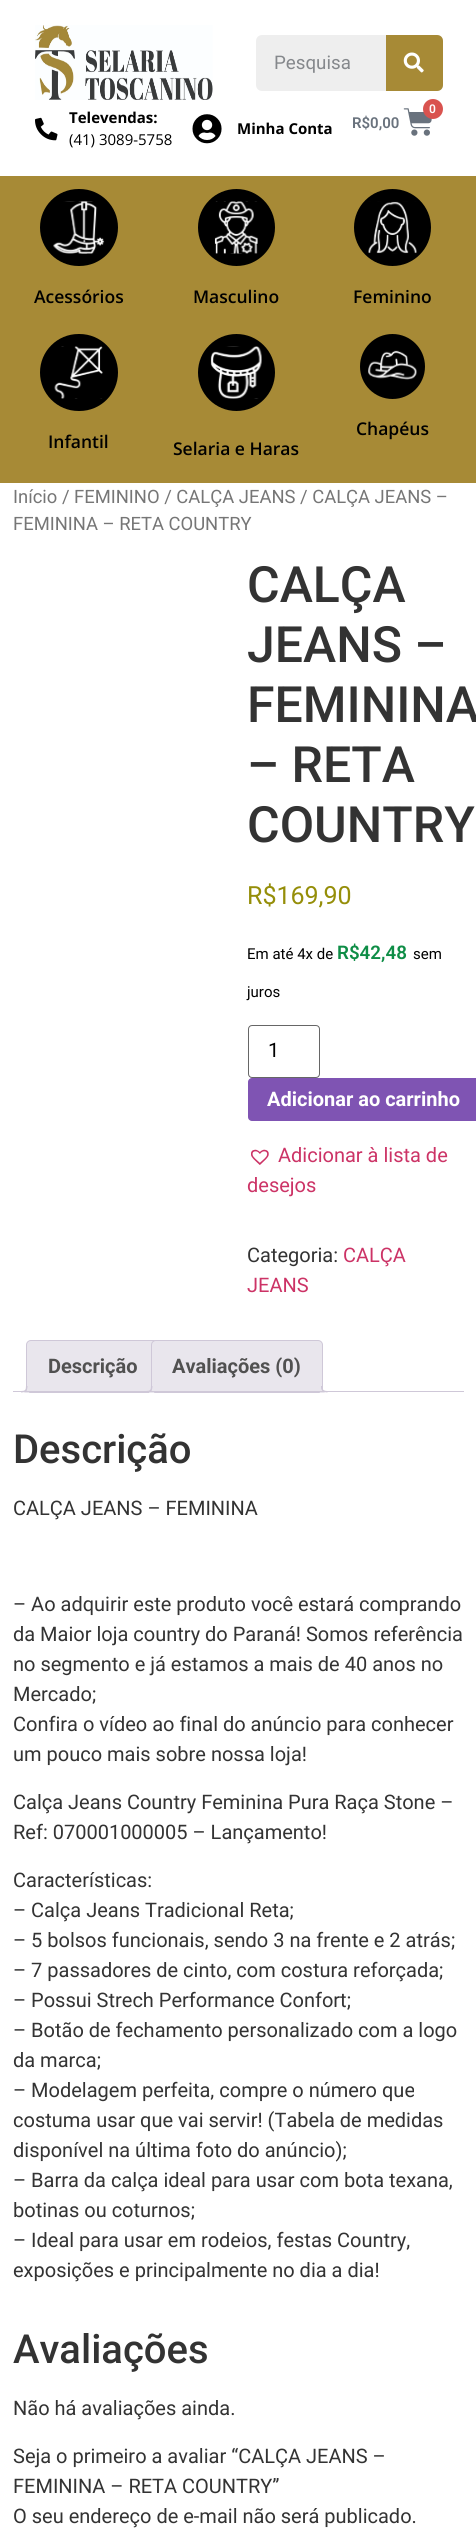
#include <cairo/cairo.h>
#include <math.h>
#include <stddef.h>


static void rounded_rect(cairo_t *cr, double x, double y, double w, double h, double r) {
  cairo_new_sub_path(cr);
  cairo_arc(cr, x + w - r, y + h - r, r, 0, M_PI / 2);
  cairo_arc(cr, x + r, y + h - r, r, M_PI / 2, M_PI);
  cairo_arc(cr, x + r, y + r, r, M_PI, 1.5 * M_PI);
  cairo_arc(cr, x + w - r, y + r, r, 1.5 * M_PI, 2 * M_PI);
  cairo_close_path(cr);
}

static void draw_image(cairo_t *cr, const char *path, double x, double y, double w, double h) {
  cairo_surface_t *image = cairo_image_surface_create_from_png(path);
  cairo_save(cr);
  cairo_set_source_surface(cr, image, x, y);
  cairo_rectangle(cr, x, y, w, h);
  cairo_fill(cr);
  cairo_restore(cr);
  cairo_surface_destroy(image);
}

static void draw(cairo_t *cr) {
  cairo_set_source_rgb(cr, 1, 1, 1);
  cairo_paint(cr);
  draw_image(cr, "images/1.png", 35, 25, 178, 75);
  cairo_set_source_rgb(cr, 238 / 255.0, 238 / 255.0, 238 / 255.0);
  rounded_rect(cr, 256, 35, 187, 56, 6);
  cairo_fill(cr);
  cairo_set_source_rgb(cr, 167 / 255.0, 138 / 255.0, 54 / 255.0);
  cairo_new_path(cr);
  cairo_move_to(cr, 386, 35);
  cairo_line_to(cr, 437, 35);
  cairo_curve_to(cr, 440.5, 35, 443, 37.5, 443, 41);
  cairo_line_to(cr, 443, 85);
  cairo_curve_to(cr, 443, 88.5, 440.5, 91, 437, 91);
  cairo_line_to(cr, 386, 91);
  cairo_close_path(cr);
  cairo_fill(cr);
  draw_image(cr, "images/2.png", 403, 52, 21, 21);
  draw_image(cr, "images/3.png", 35, 117, 23, 24);
  draw_image(cr, "images/4.png", 192, 114, 30, 30);
  draw_image(cr, "images/5.png", 403, 108, 29, 28);
  cairo_set_source_rgb(cr, 217 / 255.0, 83 / 255.0, 79 / 255.0);
  cairo_arc(cr, 433, 109, 10, 0, 2 * M_PI);
  cairo_fill(cr);
  cairo_set_source_rgb(cr, 167 / 255.0, 138 / 255.0, 54 / 255.0);
  cairo_rectangle(cr, 0, 176, 476, 307);
  cairo_fill(cr);
  cairo_set_source_rgb(cr, 0, 0, 0);
  rounded_rect(cr, 40, 189, 78, 77, 38.5);
  cairo_fill(cr);
  draw_image(cr, "images/6.png", 53, 201, 52, 53);
  cairo_arc(cr, 236.5, 227.5, 38.5, 0, 2 * M_PI);
  cairo_fill(cr);
  draw_image(cr, "images/7.png", 214, 201, 44, 53);
  cairo_arc(cr, 392.5, 227.5, 38.5, 0, 2 * M_PI);
  cairo_fill(cr);
  draw_image(cr, "images/8.png", 368, 201, 49, 53);
  cairo_arc(cr, 392.5, 366.5, 32.5, 0, 2 * M_PI);
  cairo_fill(cr);
  draw_image(cr, "images/9.png", 368, 350, 49, 30);
  rounded_rect(cr, 40, 334, 78, 77, 38.5);
  cairo_fill(cr);
  draw_image(cr, "images/10.png", 54, 346, 49, 53);
  cairo_arc(cr, 236.5, 372.5, 38.5, 0, 2 * M_PI);
  cairo_fill(cr);
  draw_image(cr, "images/11.png", 210, 346, 52, 53);
  rounded_rect(cr, 248.5, 1025.5, 71, 52, 3.5);
  cairo_set_source_rgb(cr, 102 / 255.0, 102 / 255.0, 102 / 255.0);
  cairo_set_line_width(cr, 1);
  cairo_stroke(cr);
  cairo_set_source_rgb(cr, 127 / 255.0, 84 / 255.0, 179 / 255.0);
  rounded_rect(cr, 248, 1078, 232, 43, 4);
  cairo_fill(cr);
  draw_image(cr, "images/12.png", 251, 1149, 18, 16);
  cairo_set_source_rgb(cr, 233 / 255.0, 230 / 255.0, 237 / 255.0);
  cairo_new_path(cr);
  cairo_move_to(cr, 31, 1340.5);
  cairo_line_to(cr, 154, 1340.5);
  cairo_curve_to(cr, 156.5, 1340.5, 158.5, 1342.5, 158.5, 1345);
  cairo_line_to(cr, 158.5, 1392.5);
  cairo_line_to(cr, 26.5, 1392.5);
  cairo_line_to(cr, 26.5, 1345);
  cairo_curve_to(cr, 26.5, 1342.5, 28.5, 1340.5, 31, 1340.5);
  cairo_close_path(cr);
  cairo_fill_preserve(cr);
  cairo_set_source_rgb(cr, 207 / 255.0, 200 / 255.0, 216 / 255.0);
  cairo_stroke(cr);
  cairo_save(cr);
  cairo_rectangle(cr, 13, 1340, 451, 53);
  cairo_clip(cr);
  cairo_set_source_rgb(cr, 233 / 255.0, 230 / 255.0, 237 / 255.0);
  cairo_new_path(cr);
  cairo_move_to(cr, 24, 1392.5);
  cairo_line_to(cr, 24, 1395);
  cairo_curve_to(cr, 28, 1395, 30, 1393, 30, 1389);
  cairo_line_to(cr, 27.5, 1389);
  cairo_curve_to(cr, 27, 1390.5, 25.5, 1392, 24, 1392.5);
  cairo_close_path(cr);
  cairo_fill(cr);
  cairo_restore(cr);
  cairo_set_fill_rule(cr, CAIRO_FILL_RULE_EVEN_ODD);
  cairo_new_path(cr);
  cairo_move_to(cr, 21, 1386);
  cairo_line_to(cr, 27.5, 1386);
  cairo_curve_to(cr, 27.5, 1390.5, 25.5, 1392.5, 21, 1392.5);
  cairo_close_path(cr);
  cairo_move_to(cr, 21, 1386);
  cairo_line_to(cr, 26, 1386);
  cairo_curve_to(cr, 26, 1390, 25, 1391, 21, 1391);
  cairo_close_path(cr);
  cairo_fill(cr);
  cairo_set_source_rgb(cr, 233 / 255.0, 230 / 255.0, 237 / 255.0);
  cairo_new_path(cr);
  cairo_move_to(cr, 156, 1340.5);
  cairo_line_to(cr, 318, 1340.5);
  cairo_curve_to(cr, 320.5, 1340.5, 322.5, 1342.5, 322.5, 1345);
  cairo_line_to(cr, 322.5, 1392.5);
  cairo_line_to(cr, 151.5, 1392.5);
  cairo_line_to(cr, 151.5, 1345);
  cairo_curve_to(cr, 151.5, 1342.5, 153.5, 1340.5, 156, 1340.5);
  cairo_close_path(cr);
  cairo_fill_preserve(cr);
  cairo_set_source_rgb(cr, 207 / 255.0, 200 / 255.0, 216 / 255.0);
  cairo_stroke(cr);
  cairo_save(cr);
  cairo_set_fill_rule(cr, CAIRO_FILL_RULE_WINDING);
  cairo_rectangle(cr, 13, 1340, 451, 53);
  cairo_clip(cr);
  cairo_set_source_rgb(cr, 233 / 255.0, 230 / 255.0, 237 / 255.0);
  cairo_new_path(cr);
  cairo_move_to(cr, 149, 1392.5);
  cairo_line_to(cr, 149, 1395);
  cairo_curve_to(cr, 153, 1395, 155, 1393, 155, 1389);
  cairo_line_to(cr, 152.5, 1389);
  cairo_curve_to(cr, 152, 1390.5, 150.5, 1392, 149, 1392.5);
  cairo_close_path(cr);
  cairo_fill(cr);
  cairo_restore(cr);
  cairo_new_path(cr);
  cairo_move_to(cr, 146, 1386);
  cairo_line_to(cr, 152.5, 1386);
  cairo_curve_to(cr, 152.5, 1390.5, 150.5, 1392.5, 146, 1392.5);
  cairo_close_path(cr);
  cairo_move_to(cr, 146, 1386);
  cairo_line_to(cr, 151, 1386);
  cairo_curve_to(cr, 151, 1390, 150, 1391, 146, 1391);
  cairo_close_path(cr);
  cairo_fill(cr);
  cairo_save(cr);
  cairo_set_fill_rule(cr, CAIRO_FILL_RULE_WINDING);
  cairo_rectangle(cr, 13, 1340, 451, 53);
  cairo_clip(cr);
  cairo_set_source_rgb(cr, 233 / 255.0, 230 / 255.0, 237 / 255.0);
  cairo_new_path(cr);
  cairo_move_to(cr, 319, 1389);
  cairo_curve_to(cr, 319, 1393, 321, 1395, 325, 1395);
  cairo_line_to(cr, 325, 1392.5);
  cairo_curve_to(cr, 323.5, 1392, 322, 1390.5, 321.5, 1389);
  cairo_close_path(cr);
  cairo_fill(cr);
  cairo_restore(cr);
  cairo_new_path(cr);
  cairo_move_to(cr, 321, 1386);
  cairo_line_to(cr, 327.5, 1386);
  cairo_line_to(cr, 327.5, 1392.5);
  cairo_curve_to(cr, 324.5, 1392.5, 321, 1391, 321, 1387.5);
  cairo_close_path(cr);
  cairo_move_to(cr, 322.5, 1386);
  cairo_line_to(cr, 327.5, 1386);
  cairo_line_to(cr, 327.5, 1391);
  cairo_curve_to(cr, 325, 1391, 322.5, 1390.5, 322.5, 1387.5);
  cairo_close_path(cr);
  cairo_fill(cr);
  cairo_rectangle(cr, 13, 1391, 451, 1);
  cairo_fill(cr);
  cairo_select_font_face(cr, "Roboto", CAIRO_FONT_SLANT_NORMAL, CAIRO_FONT_WEIGHT_NORMAL);
  cairo_set_font_size(cr, 18.75);
  cairo_set_source_rgb(cr, 133 / 255.0, 136 / 255.0, 140 / 255.0);
  cairo_move_to(cr, 274, 69);
  cairo_show_text(cr, "Pesquisa");
  cairo_select_font_face(cr, "Open Sans", CAIRO_FONT_SLANT_NORMAL, CAIRO_FONT_WEIGHT_BOLD);
  cairo_set_font_size(cr, 15);
  cairo_set_source_rgb(cr, 0, 0, 0);
  cairo_move_to(cr, 69, 123);
  cairo_show_text(cr, "Televendas:");
  cairo_select_font_face(cr, "Open Sans", CAIRO_FONT_SLANT_NORMAL, CAIRO_FONT_WEIGHT_NORMAL);
  cairo_move_to(cr, 69, 145);
  cairo_show_text(cr, "(41) 3089-5758");
  cairo_select_font_face(cr, "Open Sans", CAIRO_FONT_SLANT_NORMAL, CAIRO_FONT_WEIGHT_BOLD);
  cairo_move_to(cr, 237, 134);
  cairo_show_text(cr, "Minha Conta");
  cairo_select_font_face(cr, "Roboto SemiBold", CAIRO_FONT_SLANT_NORMAL, CAIRO_FONT_WEIGHT_NORMAL);
  cairo_set_font_size(cr, 12);
  cairo_set_source_rgb(cr, 1, 1, 1);
  cairo_move_to(cr, 429, 113);
  cairo_show_text(cr, "0");
  cairo_set_font_size(cr, 15);
  cairo_set_source_rgb(cr, 105 / 255.0, 114 / 255.0, 125 / 255.0);
  cairo_move_to(cr, 352, 128);
  cairo_show_text(cr, "R$0,00");
  cairo_select_font_face(cr, "Open Sans SemiBold", CAIRO_FONT_SLANT_NORMAL, CAIRO_FONT_WEIGHT_NORMAL);
  cairo_set_font_size(cr, 17.5);
  cairo_set_source_rgb(cr, 0, 0, 0);
  cairo_move_to(cr, 34, 303);
  cairo_show_text(cr, "Acessórios");
  cairo_move_to(cr, 193, 303);
  cairo_show_text(cr, "Masculino");
  cairo_move_to(cr, 353, 303);
  cairo_show_text(cr, "Feminino");
  cairo_move_to(cr, 356, 435);
  cairo_show_text(cr, "Chapéus");
  cairo_move_to(cr, 48, 448);
  cairo_show_text(cr, "Infantil");
  cairo_move_to(cr, 173, 455);
  cairo_show_text(cr, "Selaria e Haras");
  cairo_select_font_face(cr, "Roboto", CAIRO_FONT_SLANT_NORMAL, CAIRO_FONT_WEIGHT_NORMAL);
  cairo_set_font_size(cr, 18.4);
  cairo_set_source_rgb(cr, 118 / 255.0, 118 / 255.0, 118 / 255.0);
  cairo_move_to(cr, 13, 503);
  cairo_show_text(cr, "Início / FEMININO / CALÇA JEANS / CALÇA JEANS –");
  cairo_move_to(cr, 13, 530);
  cairo_show_text(cr, "FEMININA – RETA COUNTRY");
  cairo_select_font_face(cr, "Roboto Medium", CAIRO_FONT_SLANT_NORMAL, CAIRO_FONT_WEIGHT_NORMAL);
  cairo_set_font_size(cr, 50);
  cairo_set_source_rgb(cr, 51 / 255.0, 51 / 255.0, 51 / 255.0);
  cairo_move_to(cr, 247, 602);
  cairo_show_text(cr, "CALÇA");
  cairo_move_to(cr, 247, 662);
  cairo_show_text(cr, "JEANS –");
  cairo_move_to(cr, 247, 722);
  cairo_show_text(cr, "FEMININA");
  cairo_move_to(cr, 247, 782);
  cairo_show_text(cr, "– RETA");
  cairo_move_to(cr, 247, 842);
  cairo_show_text(cr, "COUNTRY");
  cairo_select_font_face(cr, "Roboto", CAIRO_FONT_SLANT_NORMAL, CAIRO_FONT_WEIGHT_NORMAL);
  cairo_set_font_size(cr, 25);
  cairo_set_source_rgb(cr, 149 / 255.0, 142 / 255.0, 9 / 255.0);
  cairo_move_to(cr, 247, 904);
  cairo_show_text(cr, "R$169,90");
  cairo_set_font_size(cr, 15);
  cairo_set_source_rgb(cr, 0, 0, 0);
  cairo_move_to(cr, 247, 959);
  cairo_show_text(cr, "Em até 4x de");
  cairo_select_font_face(cr, "Roboto SemiBold", CAIRO_FONT_SLANT_NORMAL, CAIRO_FONT_WEIGHT_NORMAL);
  cairo_set_font_size(cr, 18.75);
  cairo_set_source_rgb(cr, 14 / 255.0, 141 / 255.0, 70 / 255.0);
  cairo_move_to(cr, 337, 959);
  cairo_show_text(cr, "R$42,48");
  cairo_select_font_face(cr, "Roboto", CAIRO_FONT_SLANT_NORMAL, CAIRO_FONT_WEIGHT_NORMAL);
  cairo_set_font_size(cr, 15);
  cairo_set_source_rgb(cr, 0, 0, 0);
  cairo_move_to(cr, 413, 959);
  cairo_show_text(cr, "sem");
  cairo_move_to(cr, 247, 997);
  cairo_show_text(cr, "juros");
  cairo_set_font_size(cr, 20);
  cairo_move_to(cr, 268, 1057);
  cairo_show_text(cr, "1");
  cairo_select_font_face(cr, "Roboto", CAIRO_FONT_SLANT_NORMAL, CAIRO_FONT_WEIGHT_BOLD);
  cairo_set_source_rgb(cr, 1, 1, 1);
  cairo_move_to(cr, 267, 1106);
  cairo_show_text(cr, "Adicionar ao carrinho");
  cairo_select_font_face(cr, "Roboto", CAIRO_FONT_SLANT_NORMAL, CAIRO_FONT_WEIGHT_NORMAL);
  cairo_set_source_rgb(cr, 204 / 255.0, 51 / 255.0, 102 / 255.0);
  cairo_move_to(cr, 278, 1162);
  cairo_show_text(cr, "Adicionar à lista de");
  cairo_move_to(cr, 247, 1192);
  cairo_show_text(cr, "desejos");
  cairo_set_source_rgb(cr, 51 / 255.0, 51 / 255.0, 51 / 255.0);
  cairo_move_to(cr, 247, 1262);
  cairo_show_text(cr, "Categoria:");
  cairo_set_source_rgb(cr, 204 / 255.0, 51 / 255.0, 102 / 255.0);
  cairo_move_to(cr, 343, 1262);
  cairo_show_text(cr, "CALÇA");
  cairo_move_to(cr, 247, 1292);
  cairo_show_text(cr, "JEANS");
  cairo_select_font_face(cr, "Roboto", CAIRO_FONT_SLANT_NORMAL, CAIRO_FONT_WEIGHT_BOLD);
  cairo_set_source_rgb(cr, 81 / 255.0, 81 / 255.0, 81 / 255.0);
  cairo_move_to(cr, 48, 1373);
  cairo_show_text(cr, "Descrição");
  cairo_move_to(cr, 172, 1373);
  cairo_show_text(cr, "Avaliações (0)");
  cairo_select_font_face(cr, "Roboto Medium", CAIRO_FONT_SLANT_NORMAL, CAIRO_FONT_WEIGHT_NORMAL);
  cairo_set_font_size(cr, 40);
  cairo_set_source_rgb(cr, 51 / 255.0, 51 / 255.0, 51 / 255.0);
  cairo_move_to(cr, 13, 1463);
  cairo_show_text(cr, "Descrição");
  cairo_select_font_face(cr, "Roboto", CAIRO_FONT_SLANT_NORMAL, CAIRO_FONT_WEIGHT_NORMAL);
  cairo_set_font_size(cr, 20);
  cairo_move_to(cr, 13, 1515);
  cairo_show_text(cr, "CALÇA JEANS – FEMININA");
  cairo_move_to(cr, 13, 1611);
  cairo_show_text(cr, "– Ao adquirir este produto você estará comprando");
  cairo_move_to(cr, 13, 1641);
  cairo_show_text(cr, "da Maior loja country do Paraná! Somos referência");
  cairo_move_to(cr, 13, 1671);
  cairo_show_text(cr, "no segmento e já estamos a mais de 40 anos no");
  cairo_move_to(cr, 13, 1701);
  cairo_show_text(cr, "Mercado;");
  cairo_move_to(cr, 13, 1731);
  cairo_show_text(cr, "Confira o vídeo ao final do anúncio para conhecer");
  cairo_move_to(cr, 13, 1761);
  cairo_show_text(cr, "um pouco mais sobre nossa loja!");
  cairo_move_to(cr, 13, 1809);
  cairo_show_text(cr, "Calça Jeans Country Feminina Pura Raça Stone –");
  cairo_move_to(cr, 13, 1839);
  cairo_show_text(cr, "Ref: 070001000005 – Lançamento!");
  cairo_move_to(cr, 13, 1887);
  cairo_show_text(cr, "Características:");
  cairo_move_to(cr, 13, 1917);
  cairo_show_text(cr, "– Calça Jeans Tradicional Reta;");
  cairo_move_to(cr, 13, 1947);
  cairo_show_text(cr, "– 5 bolsos funcionais, sendo 3 na frente e 2 atrás;");
  cairo_move_to(cr, 13, 1977);
  cairo_show_text(cr, "– 7 passadores de cinto, com costura reforçada;");
  cairo_move_to(cr, 13, 2007);
  cairo_show_text(cr, "– Possui Strech Performance Confort;");
  cairo_move_to(cr, 13, 2037);
  cairo_show_text(cr, "– Botão de fechamento personalizado com a logo");
  cairo_move_to(cr, 13, 2067);
  cairo_show_text(cr, "da marca;");
  cairo_move_to(cr, 13, 2097);
  cairo_show_text(cr, "– Modelagem perfeita, compre o número que");
  cairo_move_to(cr, 13, 2127);
  cairo_show_text(cr, "costuma usar que vai servir! (Tabela de medidas");
  cairo_move_to(cr, 13, 2157);
  cairo_show_text(cr, "disponível na última foto do anúncio);");
  cairo_move_to(cr, 13, 2187);
  cairo_show_text(cr, "– Barra da calça ideal para usar com bota texana,");
  cairo_move_to(cr, 13, 2217);
  cairo_show_text(cr, "botinas ou coturnos;");
  cairo_move_to(cr, 13, 2247);
  cairo_show_text(cr, "– Ideal para usar em rodeios, festas Country,");
  cairo_move_to(cr, 13, 2277);
  cairo_show_text(cr, "exposições e principalmente no dia a dia!");
  cairo_select_font_face(cr, "Roboto Medium", CAIRO_FONT_SLANT_NORMAL, CAIRO_FONT_WEIGHT_NORMAL);
  cairo_set_font_size(cr, 40);
  cairo_move_to(cr, 13, 2363);
  cairo_show_text(cr, "Avaliações");
  cairo_select_font_face(cr, "Roboto", CAIRO_FONT_SLANT_NORMAL, CAIRO_FONT_WEIGHT_NORMAL);
  cairo_set_font_size(cr, 20);
  cairo_move_to(cr, 13, 2415);
  cairo_show_text(cr, "Não há avaliações ainda.");
  cairo_move_to(cr, 13, 2463);
  cairo_show_text(cr, "Seja o primeiro a avaliar “CALÇA JEANS –");
  cairo_move_to(cr, 13, 2493);
  cairo_show_text(cr, "FEMININA – RETA COUNTRY”");
  cairo_move_to(cr, 13, 2523);
  cairo_show_text(cr, "O seu endereço de e-mail não será publicado.");
}

int main(void) {
  cairo_surface_t *surface = cairo_image_surface_create(CAIRO_FORMAT_RGB24, 476, 2532);
  cairo_t *cr = cairo_create(surface);
  cairo_font_options_t *options = cairo_font_options_create();
  cairo_font_options_set_hint_metrics(options, CAIRO_HINT_METRICS_OFF);
  cairo_font_options_set_hint_style(options, CAIRO_HINT_STYLE_NONE);
  cairo_set_font_options(cr, options);
  cairo_set_miter_limit(cr, 4);
  draw(cr);
  cairo_surface_write_to_png(surface, "out.png");
  cairo_font_options_destroy(options);
  cairo_destroy(cr);
  cairo_surface_destroy(surface);
  return 0;
}
